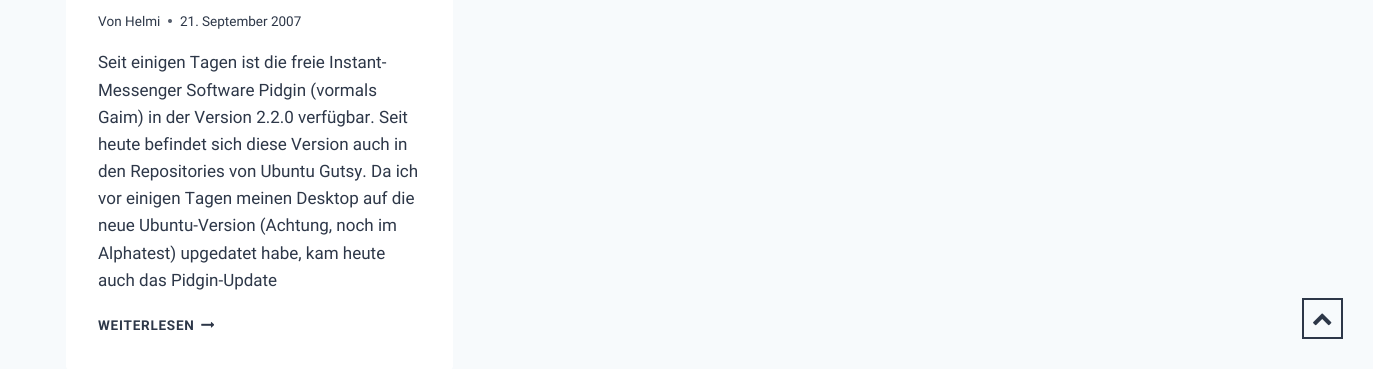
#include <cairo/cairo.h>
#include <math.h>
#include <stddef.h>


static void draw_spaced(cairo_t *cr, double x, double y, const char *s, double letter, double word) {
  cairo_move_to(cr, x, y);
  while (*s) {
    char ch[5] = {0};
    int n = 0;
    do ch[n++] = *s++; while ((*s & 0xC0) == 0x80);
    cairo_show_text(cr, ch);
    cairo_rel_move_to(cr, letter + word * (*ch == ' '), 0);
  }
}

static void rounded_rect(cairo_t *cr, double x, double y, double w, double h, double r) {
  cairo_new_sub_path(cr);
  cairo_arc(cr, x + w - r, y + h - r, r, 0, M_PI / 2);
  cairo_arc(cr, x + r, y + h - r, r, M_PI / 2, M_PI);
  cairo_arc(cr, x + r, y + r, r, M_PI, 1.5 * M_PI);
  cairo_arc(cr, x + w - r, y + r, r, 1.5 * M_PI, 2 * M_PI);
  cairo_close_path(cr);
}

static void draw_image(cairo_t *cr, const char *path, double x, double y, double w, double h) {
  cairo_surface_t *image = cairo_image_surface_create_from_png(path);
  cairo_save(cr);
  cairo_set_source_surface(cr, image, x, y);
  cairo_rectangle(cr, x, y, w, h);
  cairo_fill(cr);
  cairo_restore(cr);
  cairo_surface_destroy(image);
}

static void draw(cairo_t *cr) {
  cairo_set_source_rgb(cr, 247 / 255.0, 250 / 255.0, 252 / 255.0);
  cairo_paint(cr);
  cairo_set_source_rgb(cr, 1, 1, 1);
  rounded_rect(cr, 66, -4, 387, 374, 4);
  cairo_fill(cr);
  cairo_set_source_rgb(cr, 87 / 255.0, 95 / 255.0, 109 / 255.0);
  cairo_arc(cr, 170, 21, 2, 0, 2 * M_PI);
  cairo_fill(cr);
  draw_image(cr, "images/1.png", 201, 321, 13, 7);
  cairo_rectangle(cr, 1303, 299, 39, 39);
  cairo_set_source_rgb(cr, 45 / 255.0, 55 / 255.0, 72 / 255.0);
  cairo_stroke(cr);
  draw_image(cr, "images/2.png", 1313, 313, 19, 13);
  cairo_select_font_face(cr, "Roboto", CAIRO_FONT_SLANT_NORMAL, CAIRO_FONT_WEIGHT_NORMAL);
  cairo_set_font_size(cr, 13.5);
  cairo_move_to(cr, 98, 26);
  cairo_show_text(cr, "Von Helmi");
  cairo_move_to(cr, 180, 26);
  cairo_show_text(cr, "21. September 2007");
  cairo_set_font_size(cr, 17);
  cairo_move_to(cr, 98, 68);
  cairo_show_text(cr, "Seit einigen Tagen ist die freie Instant-");
  cairo_move_to(cr, 98, 96);
  cairo_show_text(cr, "Messenger Software Pidgin (vormals");
  cairo_move_to(cr, 98, 123);
  cairo_show_text(cr, "Gaim) in der Version 2.2.0 verfügbar. Seit");
  cairo_move_to(cr, 98, 150);
  cairo_show_text(cr, "heute befindet sich diese Version auch in");
  cairo_move_to(cr, 98, 177);
  cairo_show_text(cr, "den Repositories von Ubuntu Gutsy. Da ich");
  cairo_move_to(cr, 98, 204);
  cairo_show_text(cr, "vor einigen Tagen meinen Desktop auf die");
  cairo_move_to(cr, 98, 231);
  cairo_show_text(cr, "neue Ubuntu-Version (Achtung, noch im");
  cairo_move_to(cr, 98, 259);
  cairo_show_text(cr, "Alphatest) upgedatet habe, kam heute");
  cairo_move_to(cr, 98, 286);
  cairo_show_text(cr, "auch das Pidgin-Update");
  cairo_select_font_face(cr, "Roboto", CAIRO_FONT_SLANT_NORMAL, CAIRO_FONT_WEIGHT_BOLD);
  cairo_set_font_size(cr, 13.5);
  draw_spaced(cr, 98, 330, "WEITERLESEN", 0.75, 0);
}

int main(void) {
  cairo_surface_t *surface = cairo_image_surface_create(CAIRO_FORMAT_RGB24, 1373, 369);
  cairo_t *cr = cairo_create(surface);
  cairo_font_options_t *options = cairo_font_options_create();
  cairo_font_options_set_hint_metrics(options, CAIRO_HINT_METRICS_OFF);
  cairo_font_options_set_hint_style(options, CAIRO_HINT_STYLE_NONE);
  cairo_set_font_options(cr, options);
  cairo_set_miter_limit(cr, 4);
  draw(cr);
  cairo_surface_write_to_png(surface, "out.png");
  cairo_font_options_destroy(options);
  cairo_destroy(cr);
  cairo_surface_destroy(surface);
  return 0;
}
